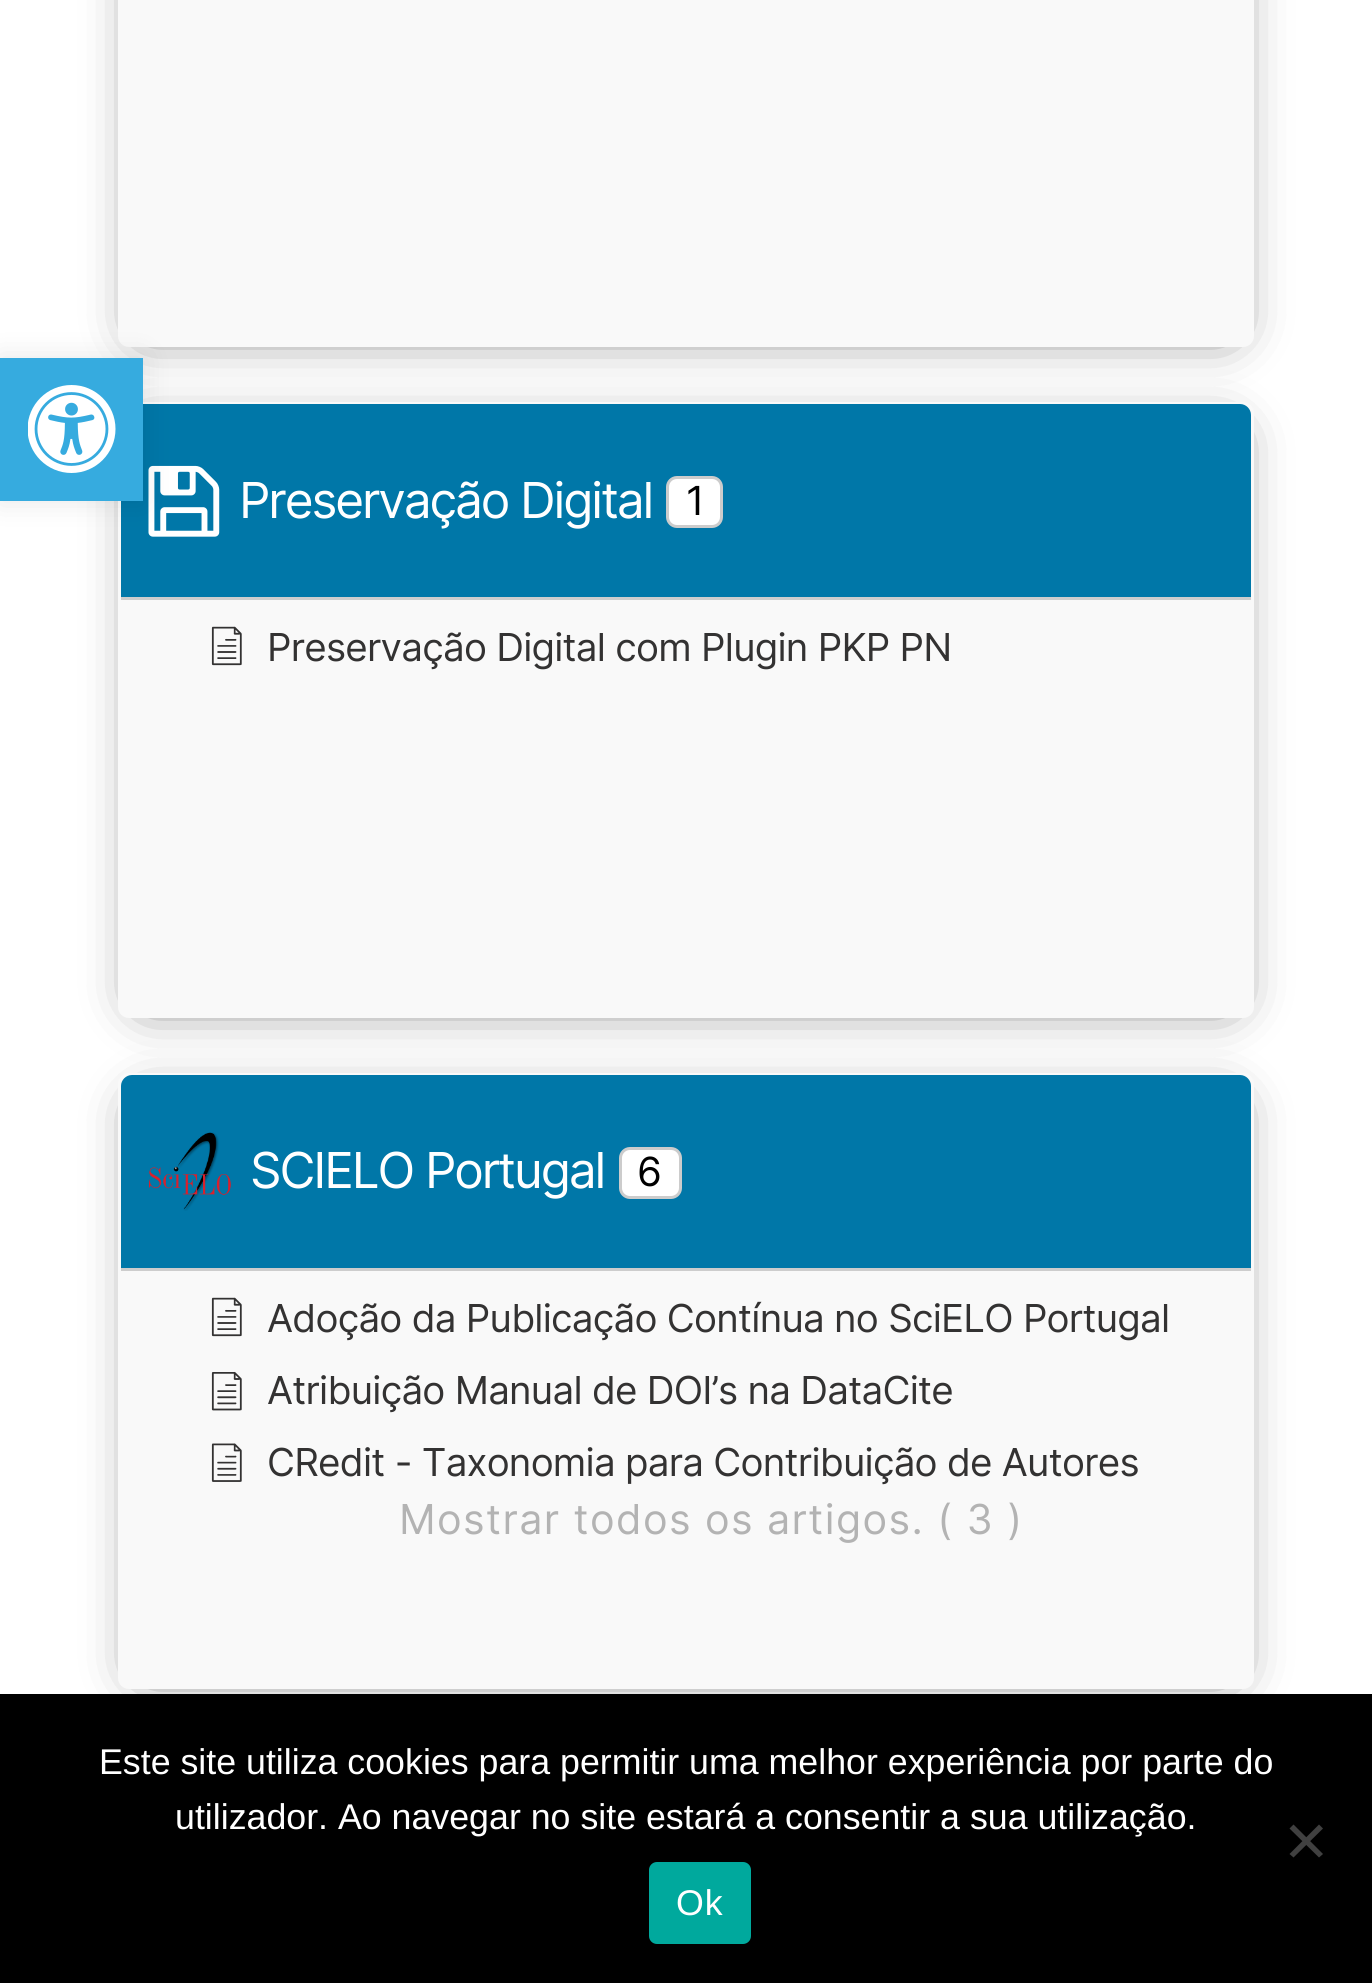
#include <cairo/cairo.h>
#include <math.h>
#include <stddef.h>


static void draw_spaced(cairo_t *cr, double x, double y, const char *s, double letter, double word) {
  cairo_move_to(cr, x, y);
  while (*s) {
    char ch[5] = {0};
    int n = 0;
    do ch[n++] = *s++; while ((*s & 0xC0) == 0x80);
    cairo_show_text(cr, ch);
    cairo_rel_move_to(cr, letter + word * (*ch == ' '), 0);
  }
}

static void rounded_rect(cairo_t *cr, double x, double y, double w, double h, double r) {
  cairo_new_sub_path(cr);
  cairo_arc(cr, x + w - r, y + h - r, r, 0, M_PI / 2);
  cairo_arc(cr, x + r, y + h - r, r, M_PI / 2, M_PI);
  cairo_arc(cr, x + r, y + r, r, M_PI, 1.5 * M_PI);
  cairo_arc(cr, x + w - r, y + r, r, 1.5 * M_PI, 2 * M_PI);
  cairo_close_path(cr);
}

static void draw_shadow(cairo_t *cr, double x, double y, double w, double h, double r, double blur, double alpha) {
  cairo_push_group_with_content(cr, CAIRO_CONTENT_ALPHA);
  cairo_set_operator(cr, CAIRO_OPERATOR_SOURCE);
  for (int i = 15; i >= -15 && fmin(w, h) + blur * i / 3 > 0; i -= 2) {
    double e = blur * i / 6;
    cairo_set_source_rgba(cr, 0, 0, 0, alpha * erfc((i - 1) / 8.5) / 2);
    rounded_rect(cr, x - e, y - e, w + 2 * e, h + 2 * e, fmax(0, fmin(r + e + blur * .6, fmin(w, h) / 2 + e)));
    cairo_fill(cr);
  }
  cairo_pattern_t *soft = cairo_pop_group(cr);
  cairo_mask(cr, soft);
  cairo_pattern_destroy(soft);
}

static void draw_image(cairo_t *cr, const char *path, double x, double y, double w, double h) {
  cairo_surface_t *image = cairo_image_surface_create_from_png(path);
  cairo_save(cr);
  cairo_set_source_surface(cr, image, x, y);
  cairo_rectangle(cr, x, y, w, h);
  cairo_fill(cr);
  cairo_restore(cr);
  cairo_surface_destroy(image);
}

static void draw(cairo_t *cr) {
  cairo_set_source_rgb(cr, 1, 1, 1);
  cairo_paint(cr);
  cairo_set_source_rgb(cr, 0, 0, 0);
  draw_shadow(cr, 146, -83, 1081, 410, 0, 27.5, 0.75);
  cairo_set_source_rgb(cr, 249 / 255.0, 249 / 255.0, 249 / 255.0);
  rounded_rect(cr, 118, -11, 1136, 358, 11);
  cairo_fill(cr);
  cairo_set_source_rgb(cr, 0, 0, 0);
  draw_shadow(cr, 146, 437, 1081, 561, 0, 27.5, 0.75);
  cairo_set_source_rgb(cr, 249 / 255.0, 249 / 255.0, 249 / 255.0);
  rounded_rect(cr, 118, 402, 1136, 616, 11);
  cairo_fill(cr);
  cairo_set_source_rgb(cr, 0, 119 / 255.0, 168 / 255.0);
  cairo_new_path(cr);
  cairo_move_to(cr, 132, 404);
  cairo_line_to(cr, 1240, 404);
  cairo_curve_to(cr, 1246, 404, 1251, 409, 1251, 415);
  cairo_line_to(cr, 1251, 600);
  cairo_line_to(cr, 121, 600);
  cairo_line_to(cr, 121, 415);
  cairo_curve_to(cr, 121, 409, 126, 404, 132, 404);
  cairo_close_path(cr);
  cairo_fill(cr);
  draw_image(cr, "images/2.png", 148, 465, 72, 72);
  cairo_set_source_rgb(cr, 0, 0, 0);
  draw_shadow(cr, 0, 358, 143, 143, 0, 14, 0.1);
  cairo_set_source_rgb(cr, 54 / 255.0, 171 / 255.0, 223 / 255.0);
  cairo_rectangle(cr, 0, 358, 143, 143);
  cairo_fill(cr);
  draw_image(cr, "images/1.png", 28, 385, 88, 88);
  cairo_set_source_rgb(cr, 205 / 255.0, 205 / 255.0, 205 / 255.0);
  cairo_rectangle(cr, 121, 597, 1130, 3);
  cairo_fill(cr);
  cairo_set_source_rgb(cr, 1, 1, 1);
  rounded_rect(cr, 667.5, 477.5, 54, 49, 9.5);
  cairo_fill_preserve(cr);
  cairo_set_source_rgb(cr, 204 / 255.0, 204 / 255.0, 204 / 255.0);
  cairo_set_line_width(cr, 3);
  cairo_stroke(cr);
  draw_image(cr, "images/3.png", 211, 626, 31, 40);
  cairo_set_source_rgb(cr, 0, 0, 0);
  draw_shadow(cr, 146, 1108, 1081, 561, 0, 27.5, 0.75);
  cairo_set_source_rgb(cr, 249 / 255.0, 249 / 255.0, 249 / 255.0);
  rounded_rect(cr, 118, 1073, 1136, 616, 11);
  cairo_fill(cr);
  cairo_set_source_rgb(cr, 0, 119 / 255.0, 168 / 255.0);
  cairo_new_path(cr);
  cairo_move_to(cr, 132, 1075);
  cairo_line_to(cr, 1240, 1075);
  cairo_curve_to(cr, 1246, 1075, 1251, 1080, 1251, 1086);
  cairo_line_to(cr, 1251, 1271);
  cairo_line_to(cr, 121, 1271);
  cairo_line_to(cr, 121, 1086);
  cairo_curve_to(cr, 121, 1080, 126, 1075, 132, 1075);
  cairo_close_path(cr);
  cairo_fill(cr);
  cairo_set_source_rgb(cr, 205 / 255.0, 205 / 255.0, 205 / 255.0);
  cairo_rectangle(cr, 121, 1268, 1130, 3);
  cairo_fill(cr);
  draw_image(cr, "images/4.png", 149, 1132, 82, 79);
  cairo_set_source_rgb(cr, 1, 1, 1);
  rounded_rect(cr, 620.5, 1148.5, 60, 49, 9.5);
  cairo_fill_preserve(cr);
  cairo_set_source_rgb(cr, 204 / 255.0, 204 / 255.0, 204 / 255.0);
  cairo_stroke(cr);
  draw_image(cr, "images/3.png", 211, 1297, 31, 40);
  draw_image(cr, "images/5.png", 211, 1371, 31, 40);
  draw_image(cr, "images/6.png", 211, 1443, 31, 39);
  cairo_set_source_rgb(cr, 0, 0, 0);
  cairo_rectangle(cr, 0, 1694, 1372, 289);
  cairo_fill(cr);
  cairo_set_source_rgb(cr, 64 / 255.0, 64 / 255.0, 64 / 255.0);
  cairo_new_path(cr);
  cairo_move_to(cr, 1319, 1824.5);
  cairo_line_to(cr, 1323, 1828.5);
  cairo_line_to(cr, 1293.5, 1857.5);
  cairo_line_to(cr, 1289.5, 1854);
  cairo_close_path(cr);
  cairo_fill(cr);
  cairo_new_path(cr);
  cairo_move_to(cr, 1289.5, 1828.5);
  cairo_line_to(cr, 1293.5, 1824.5);
  cairo_line_to(cr, 1323, 1854);
  cairo_line_to(cr, 1319, 1857.5);
  cairo_close_path(cr);
  cairo_fill(cr);
  cairo_set_source_rgb(cr, 0, 169 / 255.0, 157 / 255.0);
  rounded_rect(cr, 649, 1862, 102, 82, 8);
  cairo_fill(cr);
  cairo_select_font_face(cr, "Inter", CAIRO_FONT_SLANT_NORMAL, CAIRO_FONT_WEIGHT_NORMAL);
  cairo_set_font_size(cr, 49.5);
  cairo_set_source_rgb(cr, 1, 1, 1);
  draw_spaced(cr, 239, 518, "Preservação Digital", -2.1, 0);
  cairo_set_font_size(cr, 40);
  cairo_set_source_rgb(cr, 0, 0, 0);
  draw_spaced(cr, 686, 515, "1", -0.75, 0);
  cairo_set_font_size(cr, 38.5);
  cairo_set_source_rgb(cr, 51 / 255.0, 50 / 255.0, 50 / 255.0);
  draw_spaced(cr, 267, 661, "Preservação Digital com Plugin PKP PN", -0.75, 0);
  cairo_set_font_size(cr, 49.5);
  cairo_set_source_rgb(cr, 1, 1, 1);
  draw_spaced(cr, 250, 1188, "SCIELO Portugal", -2.1, 0);
  cairo_set_font_size(cr, 40);
  cairo_set_source_rgb(cr, 0, 0, 0);
  draw_spaced(cr, 637, 1186, "6", -0.75, 0);
  cairo_set_font_size(cr, 38.5);
  cairo_set_source_rgb(cr, 51 / 255.0, 50 / 255.0, 50 / 255.0);
  draw_spaced(cr, 267, 1332, "Adoção da Publicação Contínua no SciELO Portugal", -0.75, 0);
  draw_spaced(cr, 267, 1404, "Atribuição Manual de DOI’s na DataCite", -0.75, 0);
  draw_spaced(cr, 267, 1476, "CRedit - Taxonomia para Contribuição de Autores", -0.75, 0);
  cairo_set_font_size(cr, 41.25);
  cairo_set_source_rgb(cr, 179 / 255.0, 179 / 255.0, 179 / 255.0);
  draw_spaced(cr, 399, 1534, "Mostrar todos os artigos. ( 3 )", 1.4, 0);
  cairo_select_font_face(cr, "Liberation Sans", CAIRO_FONT_SLANT_NORMAL, CAIRO_FONT_WEIGHT_NORMAL);
  cairo_set_font_size(cr, 35.75);
  cairo_set_source_rgb(cr, 1, 1, 1);
  cairo_move_to(cr, 99, 1774);
  cairo_show_text(cr, "Este site utiliza cookies para permitir uma melhor experiência por parte do");
  cairo_move_to(cr, 175, 1829);
  cairo_show_text(cr, "utilizador. Ao navegar no site estará a consentir a sua utilização.");
  draw_spaced(cr, 676, 1915, "Ok", 1, 0);
}

int main(void) {
  cairo_surface_t *surface = cairo_image_surface_create(CAIRO_FORMAT_RGB24, 1372, 1983);
  cairo_t *cr = cairo_create(surface);
  cairo_font_options_t *options = cairo_font_options_create();
  cairo_font_options_set_hint_metrics(options, CAIRO_HINT_METRICS_OFF);
  cairo_font_options_set_hint_style(options, CAIRO_HINT_STYLE_NONE);
  cairo_set_font_options(cr, options);
  cairo_set_miter_limit(cr, 4);
  draw(cr);
  cairo_surface_write_to_png(surface, "out.png");
  cairo_font_options_destroy(options);
  cairo_destroy(cr);
  cairo_surface_destroy(surface);
  return 0;
}
